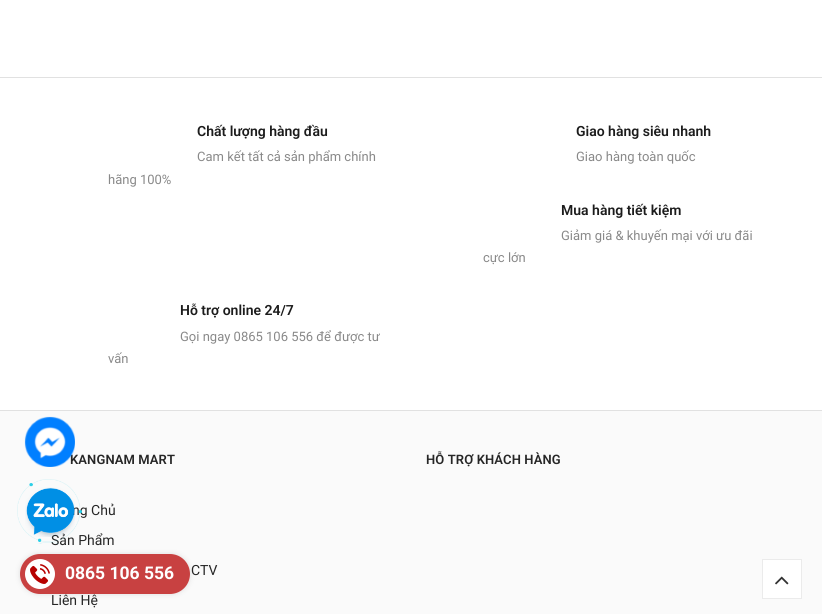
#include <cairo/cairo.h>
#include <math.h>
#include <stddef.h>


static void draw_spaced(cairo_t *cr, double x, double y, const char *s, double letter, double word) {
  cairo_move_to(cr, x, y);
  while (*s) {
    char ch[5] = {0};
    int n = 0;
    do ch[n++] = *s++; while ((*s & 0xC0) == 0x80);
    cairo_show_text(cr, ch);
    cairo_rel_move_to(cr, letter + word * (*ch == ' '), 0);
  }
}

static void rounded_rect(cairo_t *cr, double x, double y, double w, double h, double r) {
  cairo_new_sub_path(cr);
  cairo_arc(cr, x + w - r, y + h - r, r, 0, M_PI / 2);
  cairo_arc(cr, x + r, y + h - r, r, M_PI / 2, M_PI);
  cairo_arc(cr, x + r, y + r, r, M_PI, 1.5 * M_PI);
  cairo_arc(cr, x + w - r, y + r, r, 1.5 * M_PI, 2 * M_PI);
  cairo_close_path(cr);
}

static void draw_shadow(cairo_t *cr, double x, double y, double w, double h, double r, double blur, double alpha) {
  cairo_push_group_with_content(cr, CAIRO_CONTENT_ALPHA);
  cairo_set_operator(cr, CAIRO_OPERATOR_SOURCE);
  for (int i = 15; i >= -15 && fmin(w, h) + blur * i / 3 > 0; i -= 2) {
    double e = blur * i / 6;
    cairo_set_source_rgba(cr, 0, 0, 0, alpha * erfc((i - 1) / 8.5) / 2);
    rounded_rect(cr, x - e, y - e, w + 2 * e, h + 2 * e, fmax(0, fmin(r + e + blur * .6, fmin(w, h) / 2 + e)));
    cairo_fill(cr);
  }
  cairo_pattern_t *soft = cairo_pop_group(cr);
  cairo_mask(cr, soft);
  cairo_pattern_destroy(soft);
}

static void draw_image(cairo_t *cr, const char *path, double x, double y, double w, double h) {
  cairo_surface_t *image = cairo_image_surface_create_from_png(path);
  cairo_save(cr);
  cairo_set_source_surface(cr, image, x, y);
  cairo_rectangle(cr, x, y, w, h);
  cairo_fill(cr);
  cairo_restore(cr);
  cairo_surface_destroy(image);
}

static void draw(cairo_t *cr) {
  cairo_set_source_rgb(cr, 1, 1, 1);
  cairo_paint(cr);
  cairo_set_source_rgb(cr, 225 / 255.0, 225 / 255.0, 225 / 255.0);
  cairo_rectangle(cr, 0, 77, 822, 1);
  cairo_fill(cr);
  cairo_rectangle(cr, 0, 410, 822, 1);
  cairo_fill(cr);
  cairo_set_source_rgb(cr, 250 / 255.0, 250 / 255.0, 250 / 255.0);
  cairo_rectangle(cr, 0, 411, 822, 203);
  cairo_fill(cr);
  cairo_set_source_rgb(cr, 1, 1, 1);
  cairo_rectangle(cr, 762.5, 559.5, 39, 39);
  cairo_fill_preserve(cr);
  cairo_set_source_rgb(cr, 235 / 255.0, 235 / 255.0, 235 / 255.0);
  cairo_set_line_width(cr, 1);
  cairo_stroke(cr);
  draw_image(cr, "images/4.png", 775, 576, 14, 9);
  cairo_save(cr);
  cairo_set_fill_rule(cr, CAIRO_FILL_RULE_EVEN_ODD);
  cairo_new_path(cr);
  cairo_move_to(cr, 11, 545);
  cairo_line_to(cr, 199, 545);
  cairo_line_to(cr, 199, 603);
  cairo_line_to(cr, 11, 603);
  cairo_close_path(cr);
  cairo_move_to(cr, 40, 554);
  cairo_line_to(cr, 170, 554);
  cairo_curve_to(cr, 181, 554, 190, 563, 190, 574);
  cairo_curve_to(cr, 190, 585, 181, 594, 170, 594);
  cairo_line_to(cr, 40, 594);
  cairo_curve_to(cr, 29, 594, 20, 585, 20, 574);
  cairo_curve_to(cr, 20, 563, 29, 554, 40, 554);
  cairo_close_path(cr);
  cairo_clip(cr);
  cairo_set_source_rgb(cr, 221 / 255.0, 221 / 255.0, 221 / 255.0);
  draw_shadow(cr, 20, 554, 170, 40, 20, 2.5, 1);
  cairo_restore(cr);
  cairo_set_source_rgba(cr, 183 / 255.0, 1 / 255.0, 0, 0.74);
  rounded_rect(cr, 20, 554, 170, 40, 20);
  cairo_fill(cr);
  cairo_set_source_rgb(cr, 1, 1, 1);
  cairo_arc(cr, 40, 574, 15, 0, 2 * M_PI);
  cairo_fill(cr);
  draw_image(cr, "images/5.png", 30, 564, 20, 20);
  cairo_select_font_face(cr, "Roboto SemiBold", CAIRO_FONT_SLANT_NORMAL, CAIRO_FONT_WEIGHT_NORMAL);
  cairo_set_font_size(cr, 14);
  cairo_set_source_rgb(cr, 28 / 255.0, 28 / 255.0, 28 / 255.0);
  cairo_move_to(cr, 197, 136);
  cairo_show_text(cr, "Chất lượng hàng đầu");
  cairo_select_font_face(cr, "Roboto", CAIRO_FONT_SLANT_NORMAL, CAIRO_FONT_WEIGHT_NORMAL);
  cairo_set_font_size(cr, 13);
  cairo_set_source_rgb(cr, 137 / 255.0, 137 / 255.0, 137 / 255.0);
  cairo_move_to(cr, 197, 161);
  cairo_show_text(cr, "Cam kết tất cả sản phẩm chính");
  cairo_move_to(cr, 108, 184);
  cairo_show_text(cr, "hãng 100%");
  cairo_select_font_face(cr, "Roboto SemiBold", CAIRO_FONT_SLANT_NORMAL, CAIRO_FONT_WEIGHT_NORMAL);
  cairo_set_font_size(cr, 14);
  cairo_set_source_rgb(cr, 28 / 255.0, 28 / 255.0, 28 / 255.0);
  cairo_move_to(cr, 576, 136);
  cairo_show_text(cr, "Giao hàng siêu nhanh");
  cairo_select_font_face(cr, "Roboto", CAIRO_FONT_SLANT_NORMAL, CAIRO_FONT_WEIGHT_NORMAL);
  cairo_set_font_size(cr, 13);
  cairo_set_source_rgb(cr, 137 / 255.0, 137 / 255.0, 137 / 255.0);
  cairo_move_to(cr, 576, 161);
  cairo_show_text(cr, "Giao hàng toàn quốc");
  cairo_select_font_face(cr, "Roboto SemiBold", CAIRO_FONT_SLANT_NORMAL, CAIRO_FONT_WEIGHT_NORMAL);
  cairo_set_font_size(cr, 14);
  cairo_set_source_rgb(cr, 28 / 255.0, 28 / 255.0, 28 / 255.0);
  cairo_move_to(cr, 561, 215);
  cairo_show_text(cr, "Mua hàng tiết kiệm");
  cairo_select_font_face(cr, "Roboto", CAIRO_FONT_SLANT_NORMAL, CAIRO_FONT_WEIGHT_NORMAL);
  cairo_set_font_size(cr, 13);
  cairo_set_source_rgb(cr, 137 / 255.0, 137 / 255.0, 137 / 255.0);
  cairo_move_to(cr, 561, 240);
  cairo_show_text(cr, "Giảm giá & khuyến mại với ưu đãi");
  cairo_move_to(cr, 483, 262);
  cairo_show_text(cr, "cực lớn");
  cairo_select_font_face(cr, "Roboto SemiBold", CAIRO_FONT_SLANT_NORMAL, CAIRO_FONT_WEIGHT_NORMAL);
  cairo_set_font_size(cr, 14);
  cairo_set_source_rgb(cr, 28 / 255.0, 28 / 255.0, 28 / 255.0);
  cairo_move_to(cr, 180, 315);
  cairo_show_text(cr, "Hỗ trợ online 24/7");
  cairo_select_font_face(cr, "Roboto", CAIRO_FONT_SLANT_NORMAL, CAIRO_FONT_WEIGHT_NORMAL);
  cairo_set_font_size(cr, 13);
  cairo_set_source_rgb(cr, 137 / 255.0, 137 / 255.0, 137 / 255.0);
  cairo_move_to(cr, 180, 341);
  cairo_show_text(cr, "Gọi ngay 0865 106 556 để được tư");
  cairo_move_to(cr, 108, 363);
  cairo_show_text(cr, "vấn");
  cairo_select_font_face(cr, "Roboto SemiBold", CAIRO_FONT_SLANT_NORMAL, CAIRO_FONT_WEIGHT_NORMAL);
  cairo_set_source_rgb(cr, 38 / 255.0, 38 / 255.0, 38 / 255.0);
  draw_spaced(cr, 70, 464, "KANGNAM MART", 0.1, 0);
  draw_image(cr, "images/1.png", 24, 416, 51, 51);
  cairo_select_font_face(cr, "Roboto", CAIRO_FONT_SLANT_NORMAL, CAIRO_FONT_WEIGHT_NORMAL);
  cairo_set_font_size(cr, 14);
  cairo_move_to(cr, 72, 515);
  cairo_show_text(cr, "ng Chủ");
  cairo_move_to(cr, 51, 545);
  cairo_show_text(cr, "Sản Phẩm");
  draw_image(cr, "images/2.png", 17, 479, 65, 65);
  draw_image(cr, "images/3.png", 25, 487, 50, 50);
  cairo_move_to(cr, 191, 575);
  cairo_show_text(cr, "CTV");
  cairo_move_to(cr, 51, 605);
  cairo_show_text(cr, "Liên Hệ");
  cairo_select_font_face(cr, "Roboto SemiBold", CAIRO_FONT_SLANT_NORMAL, CAIRO_FONT_WEIGHT_NORMAL);
  cairo_set_font_size(cr, 13);
  draw_spaced(cr, 426, 464, "HỖ TRỢ KHÁCH HÀNG", 0.1, 0);
  cairo_select_font_face(cr, "Roboto", CAIRO_FONT_SLANT_NORMAL, CAIRO_FONT_WEIGHT_BOLD);
  cairo_set_font_size(cr, 17.5);
  cairo_set_source_rgb(cr, 1, 1, 1);
  cairo_move_to(cr, 65, 579);
  cairo_show_text(cr, "0865 106 556");
}

int main(void) {
  cairo_surface_t *surface = cairo_image_surface_create(CAIRO_FORMAT_RGB24, 822, 614);
  cairo_t *cr = cairo_create(surface);
  cairo_font_options_t *options = cairo_font_options_create();
  cairo_font_options_set_hint_metrics(options, CAIRO_HINT_METRICS_OFF);
  cairo_font_options_set_hint_style(options, CAIRO_HINT_STYLE_NONE);
  cairo_set_font_options(cr, options);
  cairo_set_miter_limit(cr, 4);
  draw(cr);
  cairo_surface_write_to_png(surface, "out.png");
  cairo_font_options_destroy(options);
  cairo_destroy(cr);
  cairo_surface_destroy(surface);
  return 0;
}
